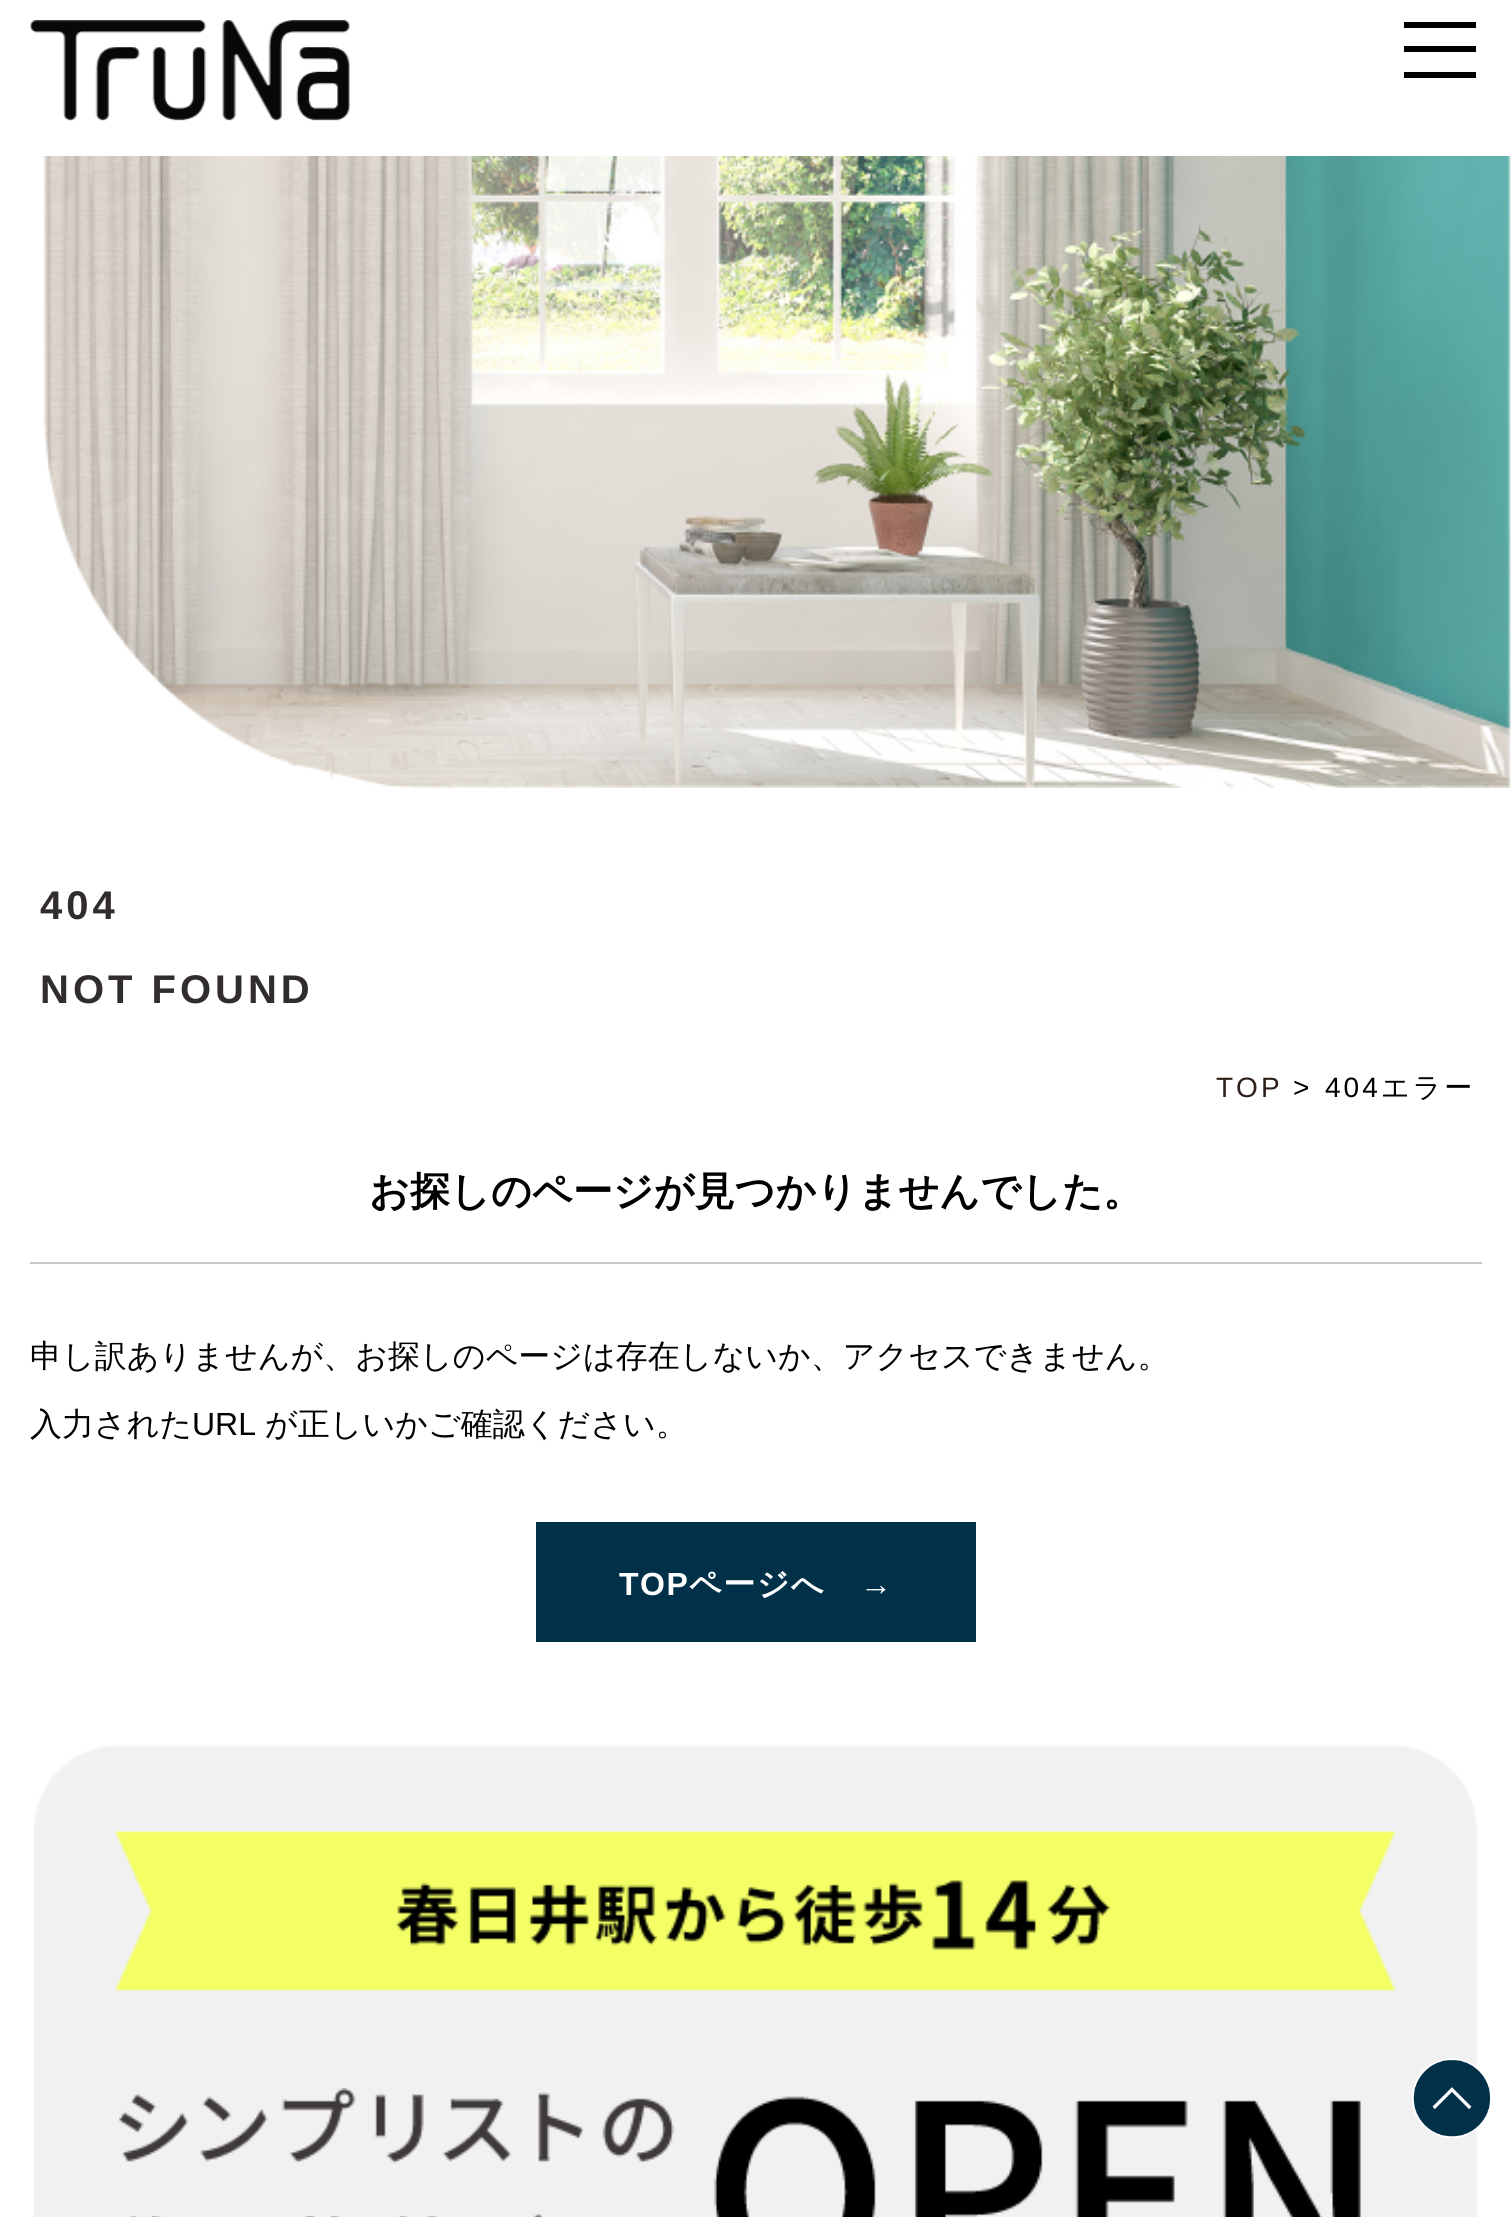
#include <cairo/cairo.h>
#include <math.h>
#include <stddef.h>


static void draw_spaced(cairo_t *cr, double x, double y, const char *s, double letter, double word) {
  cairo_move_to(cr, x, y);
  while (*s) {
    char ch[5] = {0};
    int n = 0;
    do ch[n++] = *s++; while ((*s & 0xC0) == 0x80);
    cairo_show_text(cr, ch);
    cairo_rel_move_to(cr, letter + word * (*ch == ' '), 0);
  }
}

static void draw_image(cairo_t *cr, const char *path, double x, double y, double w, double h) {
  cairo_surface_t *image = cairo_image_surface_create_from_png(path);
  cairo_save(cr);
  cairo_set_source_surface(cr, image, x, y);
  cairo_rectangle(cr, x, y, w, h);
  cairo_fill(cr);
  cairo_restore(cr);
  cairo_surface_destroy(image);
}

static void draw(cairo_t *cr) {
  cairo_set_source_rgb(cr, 1, 1, 1);
  cairo_paint(cr);
  draw_image(cr, "images/1.png", 30, 20, 320, 101);
  cairo_set_source_rgb(cr, 0, 0, 0);
  cairo_rectangle(cr, 1404, 22, 72, 6);
  cairo_fill(cr);
  cairo_rectangle(cr, 1404, 46, 72, 6);
  cairo_fill(cr);
  cairo_rectangle(cr, 1404, 72, 72, 6);
  cairo_fill(cr);
  draw_image(cr, "images/2.png", 44, 156, 1467, 632);
  cairo_set_source_rgb(cr, 199 / 255.0, 199 / 255.0, 199 / 255.0);
  cairo_rectangle(cr, 30, 1262, 1452, 2);
  cairo_fill(cr);
  cairo_set_source_rgb(cr, 0, 49 / 255.0, 73 / 255.0);
  cairo_rectangle(cr, 536, 1522, 440, 120);
  cairo_fill(cr);
  draw_image(cr, "images/3.png", 34, 1744, 1444, 473);
  draw_image(cr, "images/4.png", 1412, 2058, 78, 80);
  cairo_select_font_face(cr, "Liberation Sans", CAIRO_FONT_SLANT_NORMAL, CAIRO_FONT_WEIGHT_BOLD);
  cairo_set_font_size(cr, 40);
  cairo_set_source_rgb(cr, 48 / 255.0, 45 / 255.0, 44 / 255.0);
  draw_spaced(cr, 40, 919, "404", 4, 0);
  draw_spaced(cr, 40, 1003, "NOT FOUND", 4, 0);
  cairo_select_font_face(cr, "Liberation Sans", CAIRO_FONT_SLANT_NORMAL, CAIRO_FONT_WEIGHT_NORMAL);
  cairo_set_font_size(cr, 28);
  cairo_set_source_rgb(cr, 47 / 255.0, 32 / 255.0, 27 / 255.0);
  draw_spaced(cr, 1216, 1097, "TOP", 3, 0);
  cairo_set_source_rgb(cr, 0, 0, 0);
  draw_spaced(cr, 1293, 1097, ">", 3, 0);
  draw_spaced(cr, 1325, 1097, "404", 3, 0);
  cairo_select_font_face(cr, "WenQuanYi Zen Hei Medium", CAIRO_FONT_SLANT_NORMAL, CAIRO_FONT_WEIGHT_NORMAL);
  draw_spaced(cr, 1381, 1097, "エラー", 3, 0);
  cairo_select_font_face(cr, "WenQuanYi Zen Hei", CAIRO_FONT_SLANT_NORMAL, CAIRO_FONT_WEIGHT_BOLD);
  cairo_set_font_size(cr, 40);
  cairo_move_to(cr, 369, 1205);
  cairo_show_text(cr, "お探しのページが見つかりませんでした。");
  cairo_select_font_face(cr, "WenQuanYi Zen Hei Medium", CAIRO_FONT_SLANT_NORMAL, CAIRO_FONT_WEIGHT_NORMAL);
  cairo_set_font_size(cr, 32);
  cairo_move_to(cr, 30, 1367);
  cairo_show_text(cr, "申し訳ありませんが、お探しのページは存在しないか、アクセスできません。");
  cairo_move_to(cr, 30, 1435);
  cairo_show_text(cr, "入力された");
  cairo_select_font_face(cr, "Liberation Sans", CAIRO_FONT_SLANT_NORMAL, CAIRO_FONT_WEIGHT_NORMAL);
  cairo_move_to(cr, 192, 1435);
  cairo_show_text(cr, "URL");
  cairo_select_font_face(cr, "WenQuanYi Zen Hei Medium", CAIRO_FONT_SLANT_NORMAL, CAIRO_FONT_WEIGHT_NORMAL);
  cairo_move_to(cr, 265, 1435);
  cairo_show_text(cr, "が正しいかご確認ください。");
  cairo_select_font_face(cr, "Liberation Sans", CAIRO_FONT_SLANT_NORMAL, CAIRO_FONT_WEIGHT_BOLD);
  cairo_set_source_rgb(cr, 1, 1, 1);
  draw_spaced(cr, 619, 1595, "TOP", 1.5, 0);
  cairo_select_font_face(cr, "WenQuanYi Zen Hei", CAIRO_FONT_SLANT_NORMAL, CAIRO_FONT_WEIGHT_BOLD);
  draw_spaced(cr, 689, 1595, "ページへ", 1.5, 0);
  cairo_select_font_face(cr, "Liberation Sans", CAIRO_FONT_SLANT_NORMAL, CAIRO_FONT_WEIGHT_BOLD);
  draw_spaced(cr, 860, 1595, "→", 1.5, 0);
}

int main(void) {
  cairo_surface_t *surface = cairo_image_surface_create(CAIRO_FORMAT_RGB24, 1511, 2217);
  cairo_t *cr = cairo_create(surface);
  cairo_font_options_t *options = cairo_font_options_create();
  cairo_font_options_set_hint_metrics(options, CAIRO_HINT_METRICS_OFF);
  cairo_font_options_set_hint_style(options, CAIRO_HINT_STYLE_NONE);
  cairo_set_font_options(cr, options);
  cairo_set_miter_limit(cr, 4);
  draw(cr);
  cairo_surface_write_to_png(surface, "out.png");
  cairo_font_options_destroy(options);
  cairo_destroy(cr);
  cairo_surface_destroy(surface);
  return 0;
}
